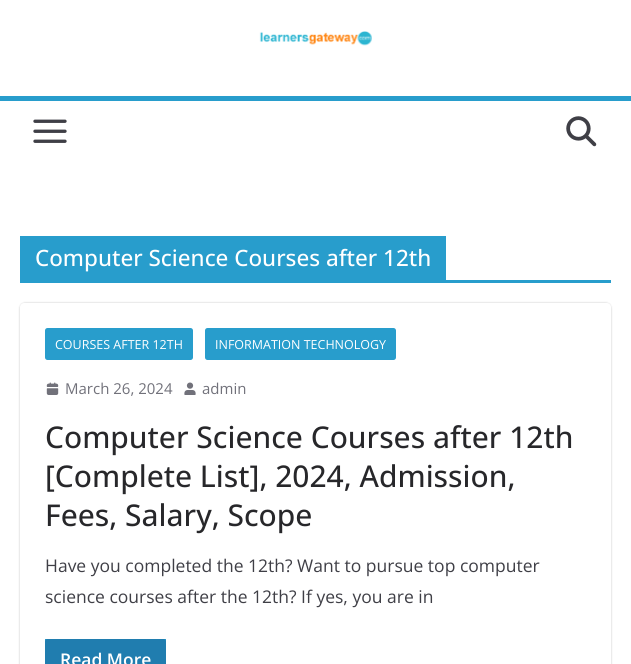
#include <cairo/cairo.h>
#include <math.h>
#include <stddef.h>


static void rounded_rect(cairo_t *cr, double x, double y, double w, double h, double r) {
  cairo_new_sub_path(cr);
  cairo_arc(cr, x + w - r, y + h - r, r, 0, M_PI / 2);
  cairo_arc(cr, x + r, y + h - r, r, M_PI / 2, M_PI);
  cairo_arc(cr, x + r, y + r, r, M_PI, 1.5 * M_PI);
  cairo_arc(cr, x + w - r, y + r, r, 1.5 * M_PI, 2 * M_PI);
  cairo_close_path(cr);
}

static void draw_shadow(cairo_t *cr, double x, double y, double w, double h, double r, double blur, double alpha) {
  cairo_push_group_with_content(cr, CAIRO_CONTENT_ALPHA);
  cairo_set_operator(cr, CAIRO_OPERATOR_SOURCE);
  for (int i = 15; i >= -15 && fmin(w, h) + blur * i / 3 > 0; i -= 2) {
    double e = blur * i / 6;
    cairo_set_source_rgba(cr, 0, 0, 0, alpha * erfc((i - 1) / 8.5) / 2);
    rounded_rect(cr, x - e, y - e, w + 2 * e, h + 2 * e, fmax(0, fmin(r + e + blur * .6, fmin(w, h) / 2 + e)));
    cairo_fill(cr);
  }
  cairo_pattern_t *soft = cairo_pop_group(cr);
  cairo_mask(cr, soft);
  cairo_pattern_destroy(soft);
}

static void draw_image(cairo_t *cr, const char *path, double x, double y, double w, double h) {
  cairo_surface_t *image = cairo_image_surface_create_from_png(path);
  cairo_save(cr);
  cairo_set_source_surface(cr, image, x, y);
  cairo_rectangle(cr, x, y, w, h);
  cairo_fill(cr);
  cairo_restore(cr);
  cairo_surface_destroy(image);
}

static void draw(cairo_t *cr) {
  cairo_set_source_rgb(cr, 1, 1, 1);
  cairo_paint(cr);
  draw_image(cr, "images/1.png", 259, 31, 113, 15);
  cairo_set_source_rgb(cr, 40 / 255.0, 157 / 255.0, 204 / 255.0);
  cairo_rectangle(cr, 0, 96, 631, 5);
  cairo_fill(cr);
  draw_image(cr, "images/2.png", 33, 119, 34, 24);
  draw_image(cr, "images/3.png", 566, 116, 31, 31);
  cairo_rectangle(cr, 20, 280, 591, 3);
  cairo_fill(cr);
  cairo_rectangle(cr, 20, 236, 426, 44);
  cairo_fill(cr);
  cairo_save(cr);
  cairo_set_fill_rule(cr, CAIRO_FILL_RULE_EVEN_ODD);
  cairo_new_path(cr);
  cairo_move_to(cr, 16, 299);
  cairo_line_to(cr, 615, 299);
  cairo_line_to(cr, 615, 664);
  cairo_line_to(cr, 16, 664);
  cairo_close_path(cr);
  cairo_move_to(cr, 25, 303);
  cairo_line_to(cr, 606, 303);
  cairo_curve_to(cr, 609, 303, 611, 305, 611, 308);
  cairo_line_to(cr, 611, 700);
  cairo_curve_to(cr, 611, 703, 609, 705, 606, 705);
  cairo_line_to(cr, 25, 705);
  cairo_curve_to(cr, 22, 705, 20, 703, 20, 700);
  cairo_line_to(cr, 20, 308);
  cairo_curve_to(cr, 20, 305, 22, 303, 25, 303);
  cairo_close_path(cr);
  cairo_clip(cr);
  cairo_set_source_rgb(cr, 0, 0, 0);
  draw_shadow(cr, 20, 303, 591, 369, 5, 1, 0.24);
  cairo_restore(cr);
  rounded_rect(cr, 45, 328, 148, 32, 2.5);
  cairo_fill(cr);
  rounded_rect(cr, 205, 328, 191, 32, 2.5);
  cairo_fill(cr);
  draw_image(cr, "images/4.png", 46, 382, 13, 13);
  draw_image(cr, "images/5.png", 184, 382, 12, 13);
  cairo_rectangle(cr, 45, 639, 121, 3);
  cairo_fill(cr);
  cairo_set_source_rgb(cr, 32 / 255.0, 125 / 255.0, 175 / 255.0);
  rounded_rect(cr, 45, 639, 121, 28, 2.5);
  cairo_fill(cr);
  cairo_select_font_face(cr, "Open Sans Medium", CAIRO_FONT_SLANT_NORMAL, CAIRO_FONT_WEIGHT_NORMAL);
  cairo_set_font_size(cr, 22.5);
  cairo_set_source_rgb(cr, 1, 1, 1);
  cairo_move_to(cr, 35, 266);
  cairo_show_text(cr, "Computer Science Courses after 12th");
  cairo_select_font_face(cr, "Open Sans", CAIRO_FONT_SLANT_NORMAL, CAIRO_FONT_WEIGHT_NORMAL);
  cairo_set_font_size(cr, 12.5);
  cairo_move_to(cr, 55, 349);
  cairo_show_text(cr, "COURSES AFTER 12TH");
  cairo_move_to(cr, 215, 349);
  cairo_show_text(cr, "INFORMATION TECHNOLOGY");
  cairo_set_font_size(cr, 15);
  cairo_set_source_rgb(cr, 113 / 255.0, 113 / 255.0, 122 / 255.0);
  cairo_move_to(cr, 65, 394);
  cairo_show_text(cr, "March 26, 2024");
  cairo_move_to(cr, 202, 394);
  cairo_show_text(cr, "admin");
  cairo_select_font_face(cr, "Open Sans Medium", CAIRO_FONT_SLANT_NORMAL, CAIRO_FONT_WEIGHT_NORMAL);
  cairo_set_font_size(cr, 30);
  cairo_set_source_rgb(cr, 39 / 255.0, 39 / 255.0, 42 / 255.0);
  cairo_move_to(cr, 45, 448);
  cairo_show_text(cr, "Computer Science Courses after 12th");
  cairo_move_to(cr, 45, 487);
  cairo_show_text(cr, "[Complete List], 2024, Admission,");
  cairo_move_to(cr, 45, 526);
  cairo_show_text(cr, "Fees, Salary, Scope");
  cairo_select_font_face(cr, "Open Sans", CAIRO_FONT_SLANT_NORMAL, CAIRO_FONT_WEIGHT_NORMAL);
  cairo_set_font_size(cr, 17.5);
  cairo_set_source_rgb(cr, 63 / 255.0, 63 / 255.0, 70 / 255.0);
  cairo_move_to(cr, 45, 572);
  cairo_show_text(cr, "Have you completed the 12th? Want to pursue top computer");
  cairo_move_to(cr, 45, 603);
  cairo_show_text(cr, "science courses after the 12th? If yes, you are in");
  cairo_select_font_face(cr, "Open Sans SemiBold", CAIRO_FONT_SLANT_NORMAL, CAIRO_FONT_WEIGHT_NORMAL);
  cairo_set_source_rgb(cr, 1, 1, 1);
  cairo_move_to(cr, 60, 666);
  cairo_show_text(cr, "Read More");
}

int main(void) {
  cairo_surface_t *surface = cairo_image_surface_create(CAIRO_FORMAT_RGB24, 631, 664);
  cairo_t *cr = cairo_create(surface);
  cairo_font_options_t *options = cairo_font_options_create();
  cairo_font_options_set_hint_metrics(options, CAIRO_HINT_METRICS_OFF);
  cairo_font_options_set_hint_style(options, CAIRO_HINT_STYLE_NONE);
  cairo_set_font_options(cr, options);
  cairo_set_miter_limit(cr, 4);
  draw(cr);
  cairo_surface_write_to_png(surface, "out.png");
  cairo_font_options_destroy(options);
  cairo_destroy(cr);
  cairo_surface_destroy(surface);
  return 0;
}
